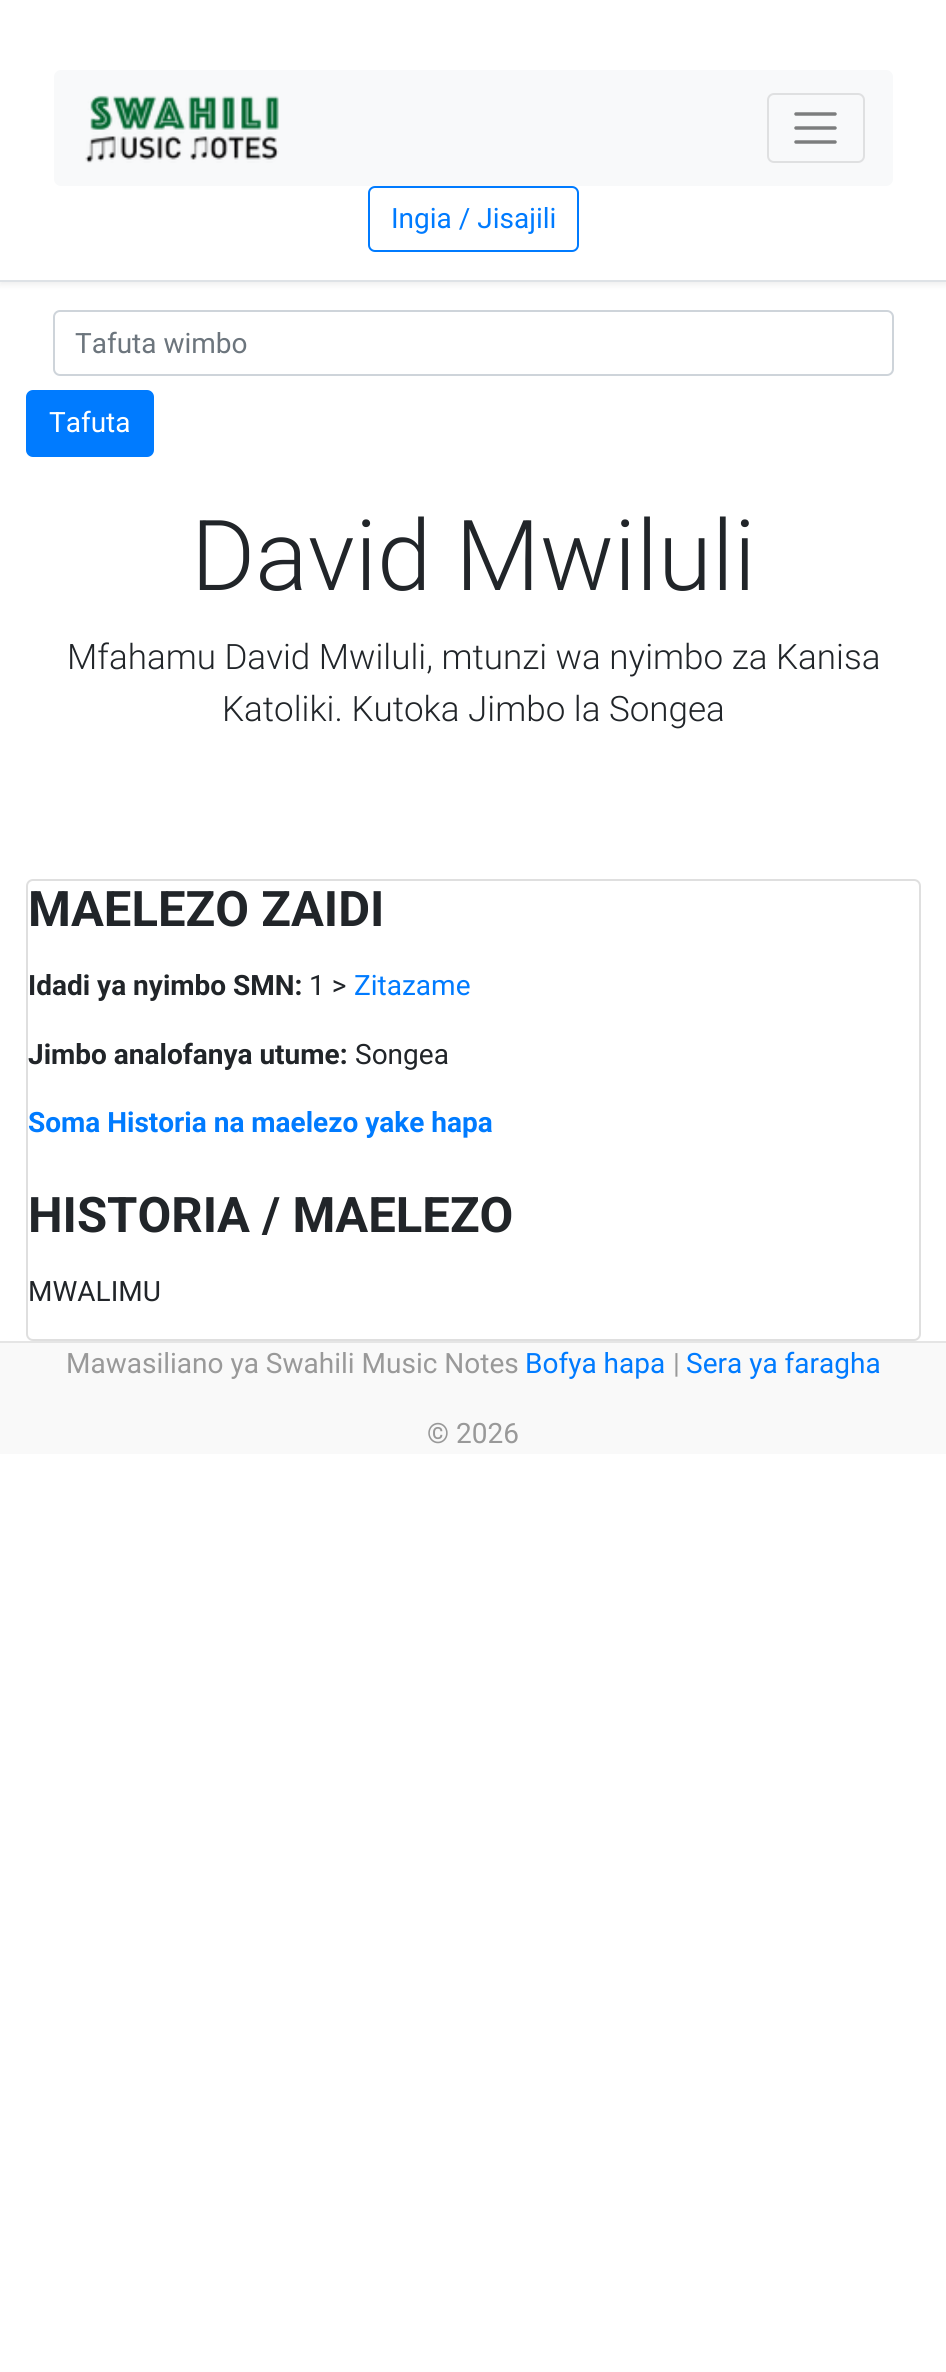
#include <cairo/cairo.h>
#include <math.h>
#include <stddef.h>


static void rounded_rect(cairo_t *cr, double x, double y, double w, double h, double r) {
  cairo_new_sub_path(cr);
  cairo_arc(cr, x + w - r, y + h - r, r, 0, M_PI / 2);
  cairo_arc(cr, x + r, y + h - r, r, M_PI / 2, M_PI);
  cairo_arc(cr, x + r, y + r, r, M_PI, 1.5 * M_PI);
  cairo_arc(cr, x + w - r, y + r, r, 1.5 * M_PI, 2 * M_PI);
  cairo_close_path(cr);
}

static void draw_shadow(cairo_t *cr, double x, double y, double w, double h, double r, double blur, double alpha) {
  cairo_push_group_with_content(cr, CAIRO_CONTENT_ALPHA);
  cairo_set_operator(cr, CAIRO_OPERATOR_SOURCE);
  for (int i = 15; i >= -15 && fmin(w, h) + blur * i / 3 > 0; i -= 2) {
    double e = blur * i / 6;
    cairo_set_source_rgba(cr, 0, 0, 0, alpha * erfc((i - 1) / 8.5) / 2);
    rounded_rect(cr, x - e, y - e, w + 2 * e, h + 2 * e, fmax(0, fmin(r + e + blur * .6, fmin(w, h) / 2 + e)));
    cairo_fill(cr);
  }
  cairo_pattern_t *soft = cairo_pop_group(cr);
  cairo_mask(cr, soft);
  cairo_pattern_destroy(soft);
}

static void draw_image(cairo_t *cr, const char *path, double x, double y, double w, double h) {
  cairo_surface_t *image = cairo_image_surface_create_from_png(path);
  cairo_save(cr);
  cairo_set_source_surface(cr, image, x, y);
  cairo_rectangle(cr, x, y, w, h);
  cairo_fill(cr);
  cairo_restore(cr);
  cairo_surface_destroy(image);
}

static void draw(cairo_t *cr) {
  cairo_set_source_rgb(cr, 1, 1, 1);
  cairo_paint(cr);
  cairo_set_source_rgb(cr, 0, 0, 0);
  draw_shadow(cr, 0, 4, 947, 281, 0, 3.5, 0.07);
  cairo_set_source_rgb(cr, 1, 1, 1);
  cairo_rectangle(cr, 0, 0, 946, 280);
  cairo_fill(cr);
  cairo_set_source_rgb(cr, 222 / 255.0, 226 / 255.0, 230 / 255.0);
  cairo_rectangle(cr, 0, 280, 946, 2);
  cairo_fill(cr);
  cairo_set_source_rgb(cr, 248 / 255.0, 249 / 255.0, 250 / 255.0);
  rounded_rect(cr, 54, 70, 839, 116, 7);
  cairo_fill(cr);
  draw_image(cr, "images/1.png", 85, 95, 194, 68);
  rounded_rect(cr, 768, 94, 96, 68, 6);
  cairo_set_source_rgb(cr, 223 / 255.0, 224 / 255.0, 225 / 255.0);
  cairo_stroke(cr);
  cairo_new_path(cr);
  cairo_move_to(cr, 796, 114);
  cairo_line_to(cr, 835, 114);
  cairo_move_to(cr, 796, 128);
  cairo_line_to(cr, 835, 128);
  cairo_move_to(cr, 796, 142);
  cairo_line_to(cr, 835, 142);
  cairo_set_source_rgb(cr, 124 / 255.0, 125 / 255.0, 125 / 255.0);
  cairo_set_line_width(cr, 3.5);
  cairo_set_line_cap(cr, CAIRO_LINE_CAP_ROUND);
  cairo_stroke(cr);
  rounded_rect(cr, 369, 187, 209, 64, 6);
  cairo_set_source_rgb(cr, 0, 123 / 255.0, 1);
  cairo_set_line_width(cr, 2);
  cairo_set_line_cap(cr, CAIRO_LINE_CAP_BUTT);
  cairo_stroke(cr);
  rounded_rect(cr, 54, 311, 839, 64, 6);
  cairo_set_source_rgb(cr, 206 / 255.0, 212 / 255.0, 218 / 255.0);
  cairo_stroke(cr);
  cairo_set_source_rgb(cr, 0, 123 / 255.0, 1);
  rounded_rect(cr, 27, 391, 126, 65, 6);
  cairo_fill_preserve(cr);
  cairo_stroke(cr);
  rounded_rect(cr, 27, 880, 893, 460, 6);
  cairo_set_source_rgb(cr, 223 / 255.0, 223 / 255.0, 223 / 255.0);
  cairo_stroke(cr);
  cairo_set_source_rgb(cr, 249 / 255.0, 249 / 255.0, 249 / 255.0);
  cairo_rectangle(cr, 0, 1343, 946, 111);
  cairo_fill(cr);
  cairo_set_source_rgb(cr, 229 / 255.0, 229 / 255.0, 229 / 255.0);
  cairo_rectangle(cr, 0, 1341, 946, 2);
  cairo_fill(cr);
  cairo_select_font_face(cr, "Roboto", CAIRO_FONT_SLANT_NORMAL, CAIRO_FONT_WEIGHT_NORMAL);
  cairo_set_font_size(cr, 28);
  cairo_set_source_rgb(cr, 0, 123 / 255.0, 1);
  cairo_move_to(cr, 391, 228);
  cairo_show_text(cr, "Ingia / Jisajili");
  cairo_set_source_rgb(cr, 108 / 255.0, 117 / 255.0, 125 / 255.0);
  cairo_move_to(cr, 75, 353);
  cairo_show_text(cr, "Tafuta wimbo");
  cairo_set_source_rgb(cr, 1, 1, 1);
  cairo_move_to(cr, 49, 432);
  cairo_show_text(cr, "Tafuta");
  cairo_select_font_face(cr, "Roboto Light", CAIRO_FONT_SLANT_NORMAL, CAIRO_FONT_WEIGHT_NORMAL);
  cairo_set_font_size(cr, 98);
  cairo_set_source_rgb(cr, 33 / 255.0, 37 / 255.0, 41 / 255.0);
  cairo_move_to(cr, 191, 590);
  cairo_show_text(cr, "David Mwiluli");
  cairo_set_font_size(cr, 35);
  cairo_move_to(cr, 67, 669);
  cairo_show_text(cr, "Mfahamu David Mwiluli, mtunzi wa nyimbo za Kanisa");
  cairo_move_to(cr, 222, 721);
  cairo_show_text(cr, "Katoliki. Kutoka Jimbo la Songea");
  cairo_select_font_face(cr, "Roboto", CAIRO_FONT_SLANT_NORMAL, CAIRO_FONT_WEIGHT_BOLD);
  cairo_set_font_size(cr, 49);
  cairo_move_to(cr, 28, 926);
  cairo_show_text(cr, "MAELEZO ZAIDI");
  cairo_set_font_size(cr, 28);
  cairo_move_to(cr, 28, 995);
  cairo_show_text(cr, "Idadi ya nyimbo SMN:");
  cairo_select_font_face(cr, "Roboto", CAIRO_FONT_SLANT_NORMAL, CAIRO_FONT_WEIGHT_NORMAL);
  cairo_move_to(cr, 309, 995);
  cairo_show_text(cr, "1 >");
  cairo_set_source_rgb(cr, 0, 123 / 255.0, 1);
  cairo_move_to(cr, 354, 995);
  cairo_show_text(cr, "Zitazame");
  cairo_select_font_face(cr, "Roboto", CAIRO_FONT_SLANT_NORMAL, CAIRO_FONT_WEIGHT_BOLD);
  cairo_set_source_rgb(cr, 33 / 255.0, 37 / 255.0, 41 / 255.0);
  cairo_move_to(cr, 28, 1064);
  cairo_show_text(cr, "Jimbo analofanya utume:");
  cairo_select_font_face(cr, "Roboto", CAIRO_FONT_SLANT_NORMAL, CAIRO_FONT_WEIGHT_NORMAL);
  cairo_move_to(cr, 355, 1064);
  cairo_show_text(cr, "Songea");
  cairo_select_font_face(cr, "Roboto", CAIRO_FONT_SLANT_NORMAL, CAIRO_FONT_WEIGHT_BOLD);
  cairo_set_source_rgb(cr, 0, 123 / 255.0, 1);
  cairo_move_to(cr, 28, 1132);
  cairo_show_text(cr, "Soma Historia na maelezo yake hapa");
  cairo_set_font_size(cr, 49);
  cairo_set_source_rgb(cr, 33 / 255.0, 37 / 255.0, 41 / 255.0);
  cairo_move_to(cr, 28, 1232);
  cairo_show_text(cr, "HISTORIA / MAELEZO");
  cairo_select_font_face(cr, "Roboto", CAIRO_FONT_SLANT_NORMAL, CAIRO_FONT_WEIGHT_NORMAL);
  cairo_set_font_size(cr, 28);
  cairo_move_to(cr, 28, 1301);
  cairo_show_text(cr, "MWALIMU");
  cairo_set_source_rgb(cr, 153 / 255.0, 153 / 255.0, 153 / 255.0);
  cairo_move_to(cr, 66, 1373);
  cairo_show_text(cr, "Mawasiliano ya Swahili Music Notes");
  cairo_set_source_rgb(cr, 0, 123 / 255.0, 1);
  cairo_move_to(cr, 525, 1373);
  cairo_show_text(cr, "Bofya hapa");
  cairo_set_source_rgb(cr, 153 / 255.0, 153 / 255.0, 153 / 255.0);
  cairo_move_to(cr, 673, 1373);
  cairo_show_text(cr, "|");
  cairo_set_source_rgb(cr, 0, 123 / 255.0, 1);
  cairo_move_to(cr, 686, 1373);
  cairo_show_text(cr, "Sera ya faragha");
  cairo_set_source_rgb(cr, 153 / 255.0, 153 / 255.0, 153 / 255.0);
  cairo_move_to(cr, 427, 1443);
  cairo_show_text(cr, "© 2026");
}

int main(void) {
  cairo_surface_t *surface = cairo_image_surface_create(CAIRO_FORMAT_RGB24, 946, 2372);
  cairo_t *cr = cairo_create(surface);
  cairo_font_options_t *options = cairo_font_options_create();
  cairo_font_options_set_hint_metrics(options, CAIRO_HINT_METRICS_OFF);
  cairo_font_options_set_hint_style(options, CAIRO_HINT_STYLE_NONE);
  cairo_set_font_options(cr, options);
  cairo_set_miter_limit(cr, 4);
  draw(cr);
  cairo_surface_write_to_png(surface, "out.png");
  cairo_font_options_destroy(options);
  cairo_destroy(cr);
  cairo_surface_destroy(surface);
  return 0;
}
